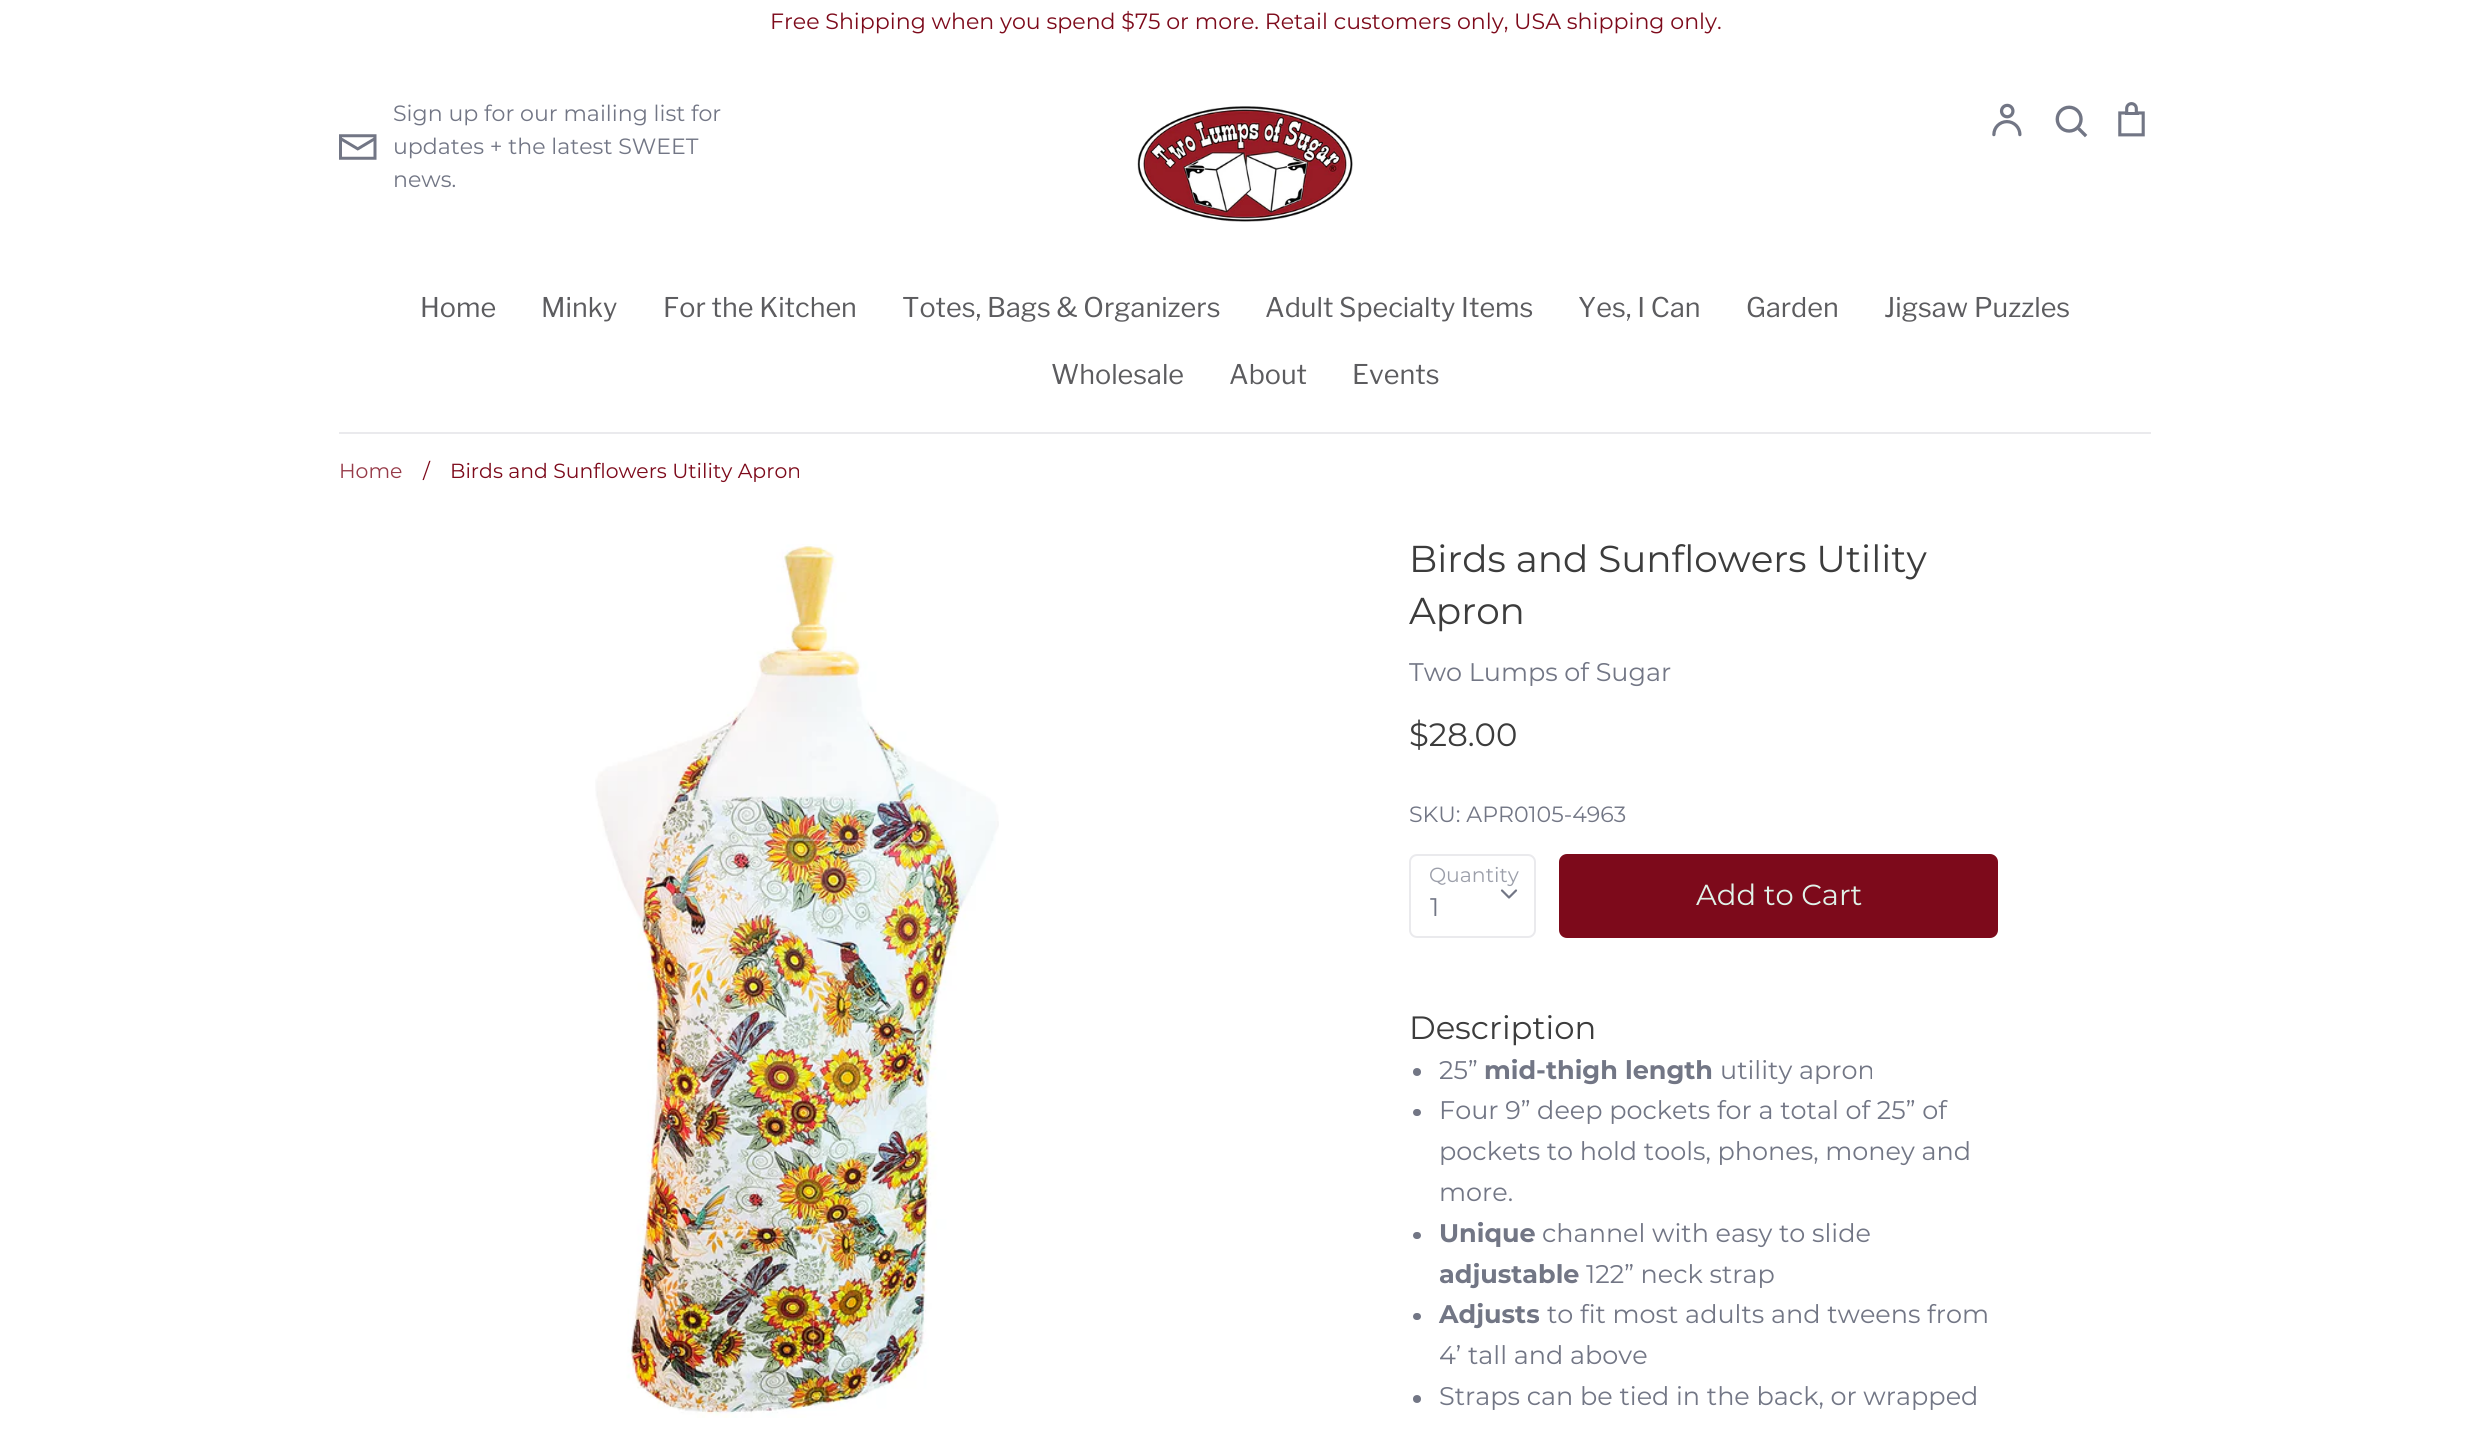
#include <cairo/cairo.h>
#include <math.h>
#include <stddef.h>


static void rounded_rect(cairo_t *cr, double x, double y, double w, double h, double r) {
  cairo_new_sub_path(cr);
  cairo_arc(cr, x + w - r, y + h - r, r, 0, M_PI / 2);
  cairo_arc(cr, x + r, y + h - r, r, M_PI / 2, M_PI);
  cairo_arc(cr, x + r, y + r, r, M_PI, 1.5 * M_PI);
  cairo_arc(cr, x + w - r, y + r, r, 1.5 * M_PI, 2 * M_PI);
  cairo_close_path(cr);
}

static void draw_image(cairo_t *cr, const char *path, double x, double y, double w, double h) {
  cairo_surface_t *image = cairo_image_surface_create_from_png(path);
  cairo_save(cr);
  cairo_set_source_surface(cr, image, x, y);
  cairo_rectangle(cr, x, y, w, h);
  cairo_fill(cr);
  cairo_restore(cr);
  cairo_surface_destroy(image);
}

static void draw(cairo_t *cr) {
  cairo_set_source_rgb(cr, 1, 1, 1);
  cairo_paint(cr);
  draw_image(cr, "images/1.png", 339, 134, 38, 26);
  draw_image(cr, "images/2.png", 1137, 106, 216, 116);
  draw_image(cr, "images/3.png", 1992, 103, 30, 34);
  draw_image(cr, "images/4.png", 2055, 105, 33, 33);
  draw_image(cr, "images/5.png", 2118, 102, 27, 35);
  cairo_set_source_rgb(cr, 234 / 255.0, 234 / 255.0, 237 / 255.0);
  cairo_rectangle(cr, 339, 432, 1812, 2);
  cairo_fill(cr);
  draw_image(cr, "images/6.png", 595, 544, 404, 874);
  rounded_rect(cr, 1410, 855, 125, 82, 7);
  cairo_stroke(cr);
  cairo_new_path(cr);
  cairo_move_to(cr, 1502, 890.5);
  cairo_line_to(cr, 1509, 897.5);
  cairo_line_to(cr, 1516, 890.5);
  cairo_set_source_rgb(cr, 114 / 255.0, 118 / 255.0, 133 / 255.0);
  cairo_set_line_width(cr, 2.2);
  cairo_set_line_cap(cr, CAIRO_LINE_CAP_ROUND);
  cairo_set_line_join(cr, CAIRO_LINE_JOIN_ROUND);
  cairo_stroke(cr);
  cairo_set_source_rgb(cr, 125 / 255.0, 10 / 255.0, 27 / 255.0);
  rounded_rect(cr, 1560, 855, 437, 82, 7);
  cairo_fill_preserve(cr);
  cairo_set_line_width(cr, 2);
  cairo_set_line_cap(cr, CAIRO_LINE_CAP_BUTT);
  cairo_set_line_join(cr, CAIRO_LINE_JOIN_MITER);
  cairo_stroke(cr);
  cairo_set_source_rgb(cr, 114 / 255.0, 118 / 255.0, 133 / 255.0);
  cairo_arc(cr, 1417, 1072, 4, 0, 2 * M_PI);
  cairo_fill(cr);
  rounded_rect(cr, 1413, 1109, 8, 7, 3.5);
  cairo_fill(cr);
  rounded_rect(cr, 1413, 1232, 8, 7, 3.5);
  cairo_fill(cr);
  rounded_rect(cr, 1413, 1313, 8, 7, 3.5);
  cairo_fill(cr);
  cairo_arc(cr, 1417, 1399, 4, 0, 2 * M_PI);
  cairo_fill(cr);
  cairo_select_font_face(cr, "Montserrat", CAIRO_FONT_SLANT_NORMAL, CAIRO_FONT_WEIGHT_NORMAL);
  cairo_set_font_size(cr, 22.1);
  cairo_set_source_rgb(cr, 125 / 255.0, 10 / 255.0, 27 / 255.0);
  cairo_move_to(cr, 770, 29);
  cairo_show_text(cr, "Free Shipping when you spend $75 or more. Retail customers only, USA shipping only.");
  cairo_set_source_rgb(cr, 114 / 255.0, 118 / 255.0, 133 / 255.0);
  cairo_move_to(cr, 393, 121);
  cairo_show_text(cr, "Sign up for our mailing list for");
  cairo_move_to(cr, 393, 154);
  cairo_show_text(cr, "updates + the latest SWEET");
  cairo_move_to(cr, 393, 187);
  cairo_show_text(cr, "news.");
  cairo_select_font_face(cr, "Libre Franklin", CAIRO_FONT_SLANT_NORMAL, CAIRO_FONT_WEIGHT_NORMAL);
  cairo_set_font_size(cr, 27);
  cairo_set_source_rgb(cr, 92 / 255.0, 92 / 255.0, 95 / 255.0);
  cairo_move_to(cr, 420, 317);
  cairo_show_text(cr, "Home");
  cairo_move_to(cr, 541, 317);
  cairo_show_text(cr, "Minky");
  cairo_move_to(cr, 663, 317);
  cairo_show_text(cr, "For the Kitchen");
  cairo_move_to(cr, 902, 317);
  cairo_show_text(cr, "Totes, Bags & Organizers");
  cairo_move_to(cr, 1265, 317);
  cairo_show_text(cr, "Adult Specialty Items");
  cairo_move_to(cr, 1578, 317);
  cairo_show_text(cr, "Yes, I Can");
  cairo_move_to(cr, 1746, 317);
  cairo_show_text(cr, "Garden");
  cairo_move_to(cr, 1884, 317);
  cairo_show_text(cr, "Jigsaw Puzzles");
  cairo_move_to(cr, 1051, 384);
  cairo_show_text(cr, "Wholesale");
  cairo_move_to(cr, 1229, 384);
  cairo_show_text(cr, "About");
  cairo_move_to(cr, 1352, 384);
  cairo_show_text(cr, "Events");
  cairo_select_font_face(cr, "Montserrat", CAIRO_FONT_SLANT_NORMAL, CAIRO_FONT_WEIGHT_NORMAL);
  cairo_set_font_size(cr, 20.4);
  cairo_set_source_rgb(cr, 151 / 255.0, 59 / 255.0, 73 / 255.0);
  cairo_move_to(cr, 339, 478);
  cairo_show_text(cr, "Home");
  cairo_set_source_rgb(cr, 125 / 255.0, 10 / 255.0, 27 / 255.0);
  cairo_move_to(cr, 423, 478);
  cairo_show_text(cr, "/");
  cairo_move_to(cr, 450, 478);
  cairo_show_text(cr, "Birds and Sunflowers Utility Apron");
  cairo_set_font_size(cr, 37.4);
  cairo_set_source_rgb(cr, 60 / 255.0, 60 / 255.0, 60 / 255.0);
  cairo_move_to(cr, 1409, 572);
  cairo_show_text(cr, "Birds and Sunflowers Utility");
  cairo_move_to(cr, 1409, 624);
  cairo_show_text(cr, "Apron");
  cairo_set_font_size(cr, 25.5);
  cairo_set_source_rgb(cr, 114 / 255.0, 118 / 255.0, 133 / 255.0);
  cairo_move_to(cr, 1409, 681);
  cairo_show_text(cr, "Two Lumps of Sugar");
  cairo_set_font_size(cr, 32.25);
  cairo_set_source_rgb(cr, 60 / 255.0, 60 / 255.0, 60 / 255.0);
  cairo_move_to(cr, 1409, 746);
  cairo_show_text(cr, "$28.00");
  cairo_set_font_size(cr, 22.1);
  cairo_set_source_rgb(cr, 114 / 255.0, 118 / 255.0, 133 / 255.0);
  cairo_move_to(cr, 1409, 822);
  cairo_show_text(cr, "SKU: APR0105-4963");
  cairo_set_font_size(cr, 20.4);
  cairo_set_source_rgb(cr, 156 / 255.0, 159 / 255.0, 170 / 255.0);
  cairo_move_to(cr, 1429, 882);
  cairo_show_text(cr, "Quantity");
  cairo_set_font_size(cr, 25.5);
  cairo_set_source_rgb(cr, 114 / 255.0, 118 / 255.0, 133 / 255.0);
  cairo_move_to(cr, 1430, 916);
  cairo_show_text(cr, "1");
  cairo_set_font_size(cr, 29);
  cairo_set_source_rgb(cr, 224 / 255.0, 242 / 255.0, 232 / 255.0);
  cairo_move_to(cr, 1696, 905);
  cairo_show_text(cr, "Add to Cart");
  cairo_set_font_size(cr, 32.25);
  cairo_set_source_rgb(cr, 60 / 255.0, 60 / 255.0, 60 / 255.0);
  cairo_move_to(cr, 1409, 1039);
  cairo_show_text(cr, "Description");
  cairo_set_font_size(cr, 25.5);
  cairo_set_source_rgb(cr, 114 / 255.0, 118 / 255.0, 133 / 255.0);
  cairo_move_to(cr, 1439, 1079);
  cairo_show_text(cr, "25”");
  cairo_select_font_face(cr, "Montserrat", CAIRO_FONT_SLANT_NORMAL, CAIRO_FONT_WEIGHT_BOLD);
  cairo_move_to(cr, 1484, 1079);
  cairo_show_text(cr, "mid-thigh length");
  cairo_select_font_face(cr, "Montserrat", CAIRO_FONT_SLANT_NORMAL, CAIRO_FONT_WEIGHT_NORMAL);
  cairo_move_to(cr, 1720, 1079);
  cairo_show_text(cr, "utility apron");
  cairo_move_to(cr, 1439, 1119);
  cairo_show_text(cr, "Four 9” deep pockets for a total of 25” of");
  cairo_move_to(cr, 1439, 1160);
  cairo_show_text(cr, "pockets to hold tools, phones, money and");
  cairo_move_to(cr, 1439, 1201);
  cairo_show_text(cr, "more.");
  cairo_select_font_face(cr, "Montserrat", CAIRO_FONT_SLANT_NORMAL, CAIRO_FONT_WEIGHT_BOLD);
  cairo_move_to(cr, 1439, 1242);
  cairo_show_text(cr, "Unique");
  cairo_select_font_face(cr, "Montserrat", CAIRO_FONT_SLANT_NORMAL, CAIRO_FONT_WEIGHT_NORMAL);
  cairo_move_to(cr, 1542, 1242);
  cairo_show_text(cr, "channel with easy to slide");
  cairo_select_font_face(cr, "Montserrat", CAIRO_FONT_SLANT_NORMAL, CAIRO_FONT_WEIGHT_BOLD);
  cairo_move_to(cr, 1439, 1283);
  cairo_show_text(cr, "adjustable");
  cairo_select_font_face(cr, "Montserrat", CAIRO_FONT_SLANT_NORMAL, CAIRO_FONT_WEIGHT_NORMAL);
  cairo_move_to(cr, 1586, 1283);
  cairo_show_text(cr, "122” neck strap");
  cairo_select_font_face(cr, "Montserrat", CAIRO_FONT_SLANT_NORMAL, CAIRO_FONT_WEIGHT_BOLD);
  cairo_move_to(cr, 1439, 1323);
  cairo_show_text(cr, "Adjusts");
  cairo_select_font_face(cr, "Montserrat", CAIRO_FONT_SLANT_NORMAL, CAIRO_FONT_WEIGHT_NORMAL);
  cairo_move_to(cr, 1547, 1323);
  cairo_show_text(cr, "to fit most adults and tweens from");
  cairo_move_to(cr, 1439, 1364);
  cairo_show_text(cr, "4’ tall and above");
  cairo_move_to(cr, 1439, 1405);
  cairo_show_text(cr, "Straps can be tied in the back, or wrapped");
}

int main(void) {
  cairo_surface_t *surface = cairo_image_surface_create(CAIRO_FORMAT_RGB24, 2489, 1433);
  cairo_t *cr = cairo_create(surface);
  cairo_font_options_t *options = cairo_font_options_create();
  cairo_font_options_set_hint_metrics(options, CAIRO_HINT_METRICS_OFF);
  cairo_font_options_set_hint_style(options, CAIRO_HINT_STYLE_NONE);
  cairo_set_font_options(cr, options);
  cairo_set_miter_limit(cr, 4);
  draw(cr);
  cairo_surface_write_to_png(surface, "out.png");
  cairo_font_options_destroy(options);
  cairo_destroy(cr);
  cairo_surface_destroy(surface);
  return 0;
}
